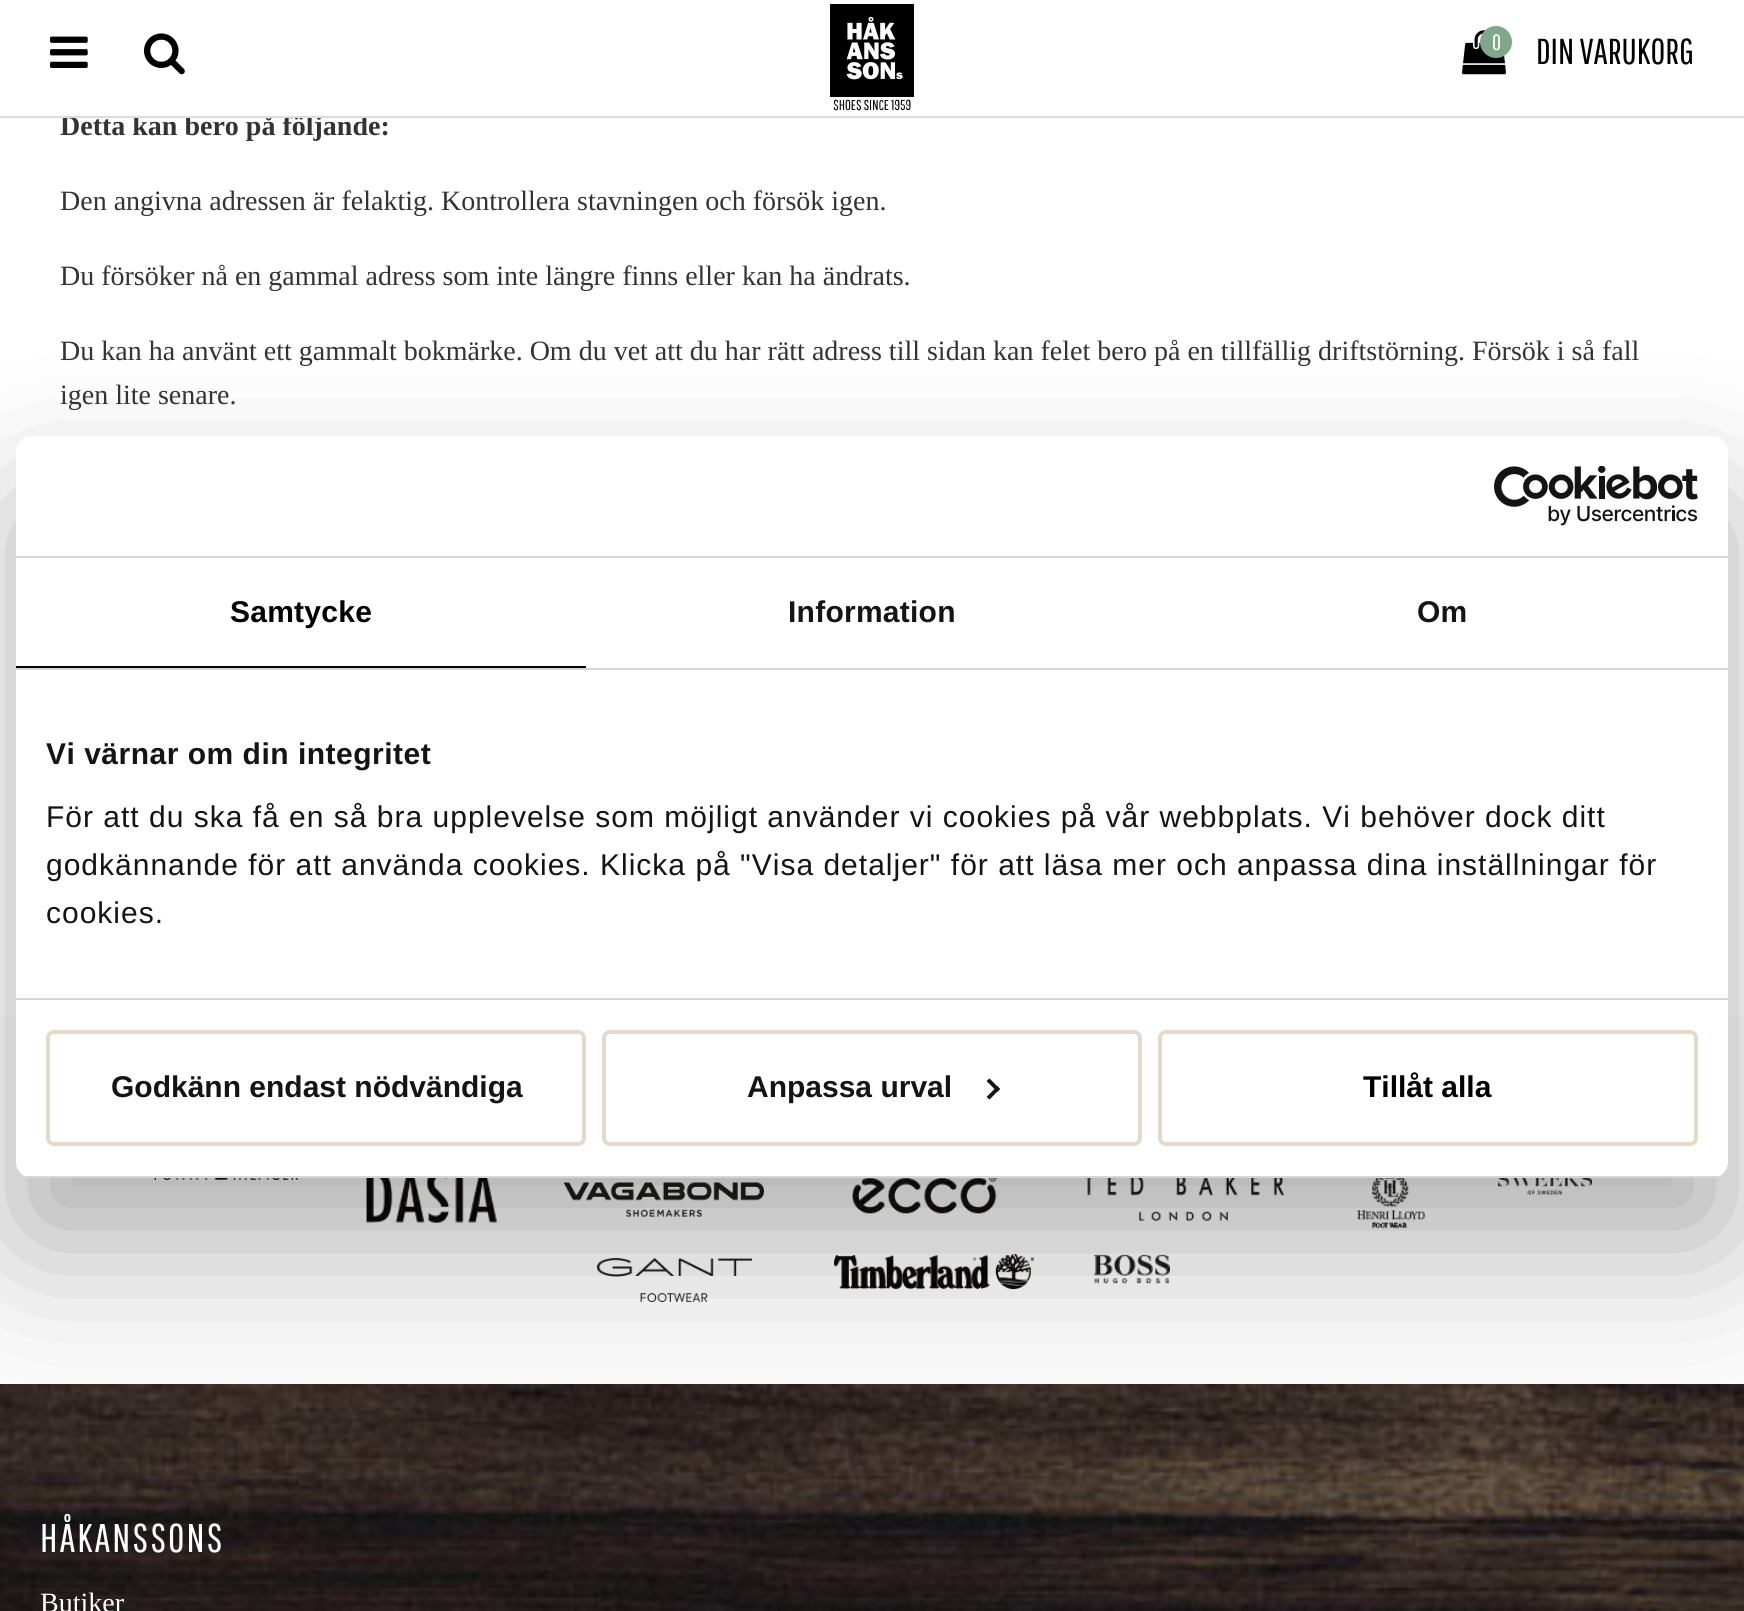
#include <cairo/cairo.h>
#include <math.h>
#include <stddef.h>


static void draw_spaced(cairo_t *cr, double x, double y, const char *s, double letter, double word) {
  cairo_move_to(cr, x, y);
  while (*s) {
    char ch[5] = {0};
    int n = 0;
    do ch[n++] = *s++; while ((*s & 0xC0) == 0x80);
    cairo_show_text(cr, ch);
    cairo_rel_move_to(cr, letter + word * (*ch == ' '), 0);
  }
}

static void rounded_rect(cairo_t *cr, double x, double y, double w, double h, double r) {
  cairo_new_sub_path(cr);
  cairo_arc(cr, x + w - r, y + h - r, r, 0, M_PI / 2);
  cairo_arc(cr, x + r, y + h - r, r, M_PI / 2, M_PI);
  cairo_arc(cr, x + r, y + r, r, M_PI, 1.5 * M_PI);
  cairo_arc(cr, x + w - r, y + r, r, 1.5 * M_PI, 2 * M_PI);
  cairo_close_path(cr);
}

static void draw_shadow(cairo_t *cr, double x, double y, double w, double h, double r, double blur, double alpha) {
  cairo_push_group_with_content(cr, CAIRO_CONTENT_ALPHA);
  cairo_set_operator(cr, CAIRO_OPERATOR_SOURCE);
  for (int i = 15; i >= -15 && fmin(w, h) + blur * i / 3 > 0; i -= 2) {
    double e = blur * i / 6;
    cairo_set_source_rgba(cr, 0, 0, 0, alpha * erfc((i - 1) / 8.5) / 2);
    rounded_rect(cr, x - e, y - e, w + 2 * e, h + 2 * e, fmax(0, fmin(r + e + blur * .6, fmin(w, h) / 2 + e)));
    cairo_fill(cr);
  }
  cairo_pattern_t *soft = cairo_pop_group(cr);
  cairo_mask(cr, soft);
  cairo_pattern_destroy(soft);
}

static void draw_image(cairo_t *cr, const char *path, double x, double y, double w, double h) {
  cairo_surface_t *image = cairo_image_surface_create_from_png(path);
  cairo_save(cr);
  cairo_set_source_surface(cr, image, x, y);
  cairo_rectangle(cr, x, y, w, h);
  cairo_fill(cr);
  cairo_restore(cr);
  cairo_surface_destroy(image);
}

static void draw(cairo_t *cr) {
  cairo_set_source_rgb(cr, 1, 1, 1);
  cairo_paint(cr);
  draw_image(cr, "images/1.png", 50, 36, 38, 32);
  draw_image(cr, "images/2.png", 144, 33, 41, 42);
  draw_image(cr, "images/3.png", 830, 4, 84, 107);
  draw_image(cr, "images/4.png", 1462, 30, 44, 45);
  cairo_set_source_rgb(cr, 128 / 255.0, 167 / 255.0, 137 / 255.0);
  cairo_arc(cr, 1496, 42, 16, 0, 2 * M_PI);
  cairo_fill(cr);
  cairo_set_source_rgb(cr, 250 / 255.0, 250 / 255.0, 250 / 255.0);
  cairo_rectangle(cr, 0, 1016, 1744, 368);
  cairo_fill(cr);
  draw_image(cr, "images/5.png", 154, 1178, 144, 2);
  draw_image(cr, "images/6.png", 366, 1178, 131, 45);
  draw_image(cr, "images/7.png", 564, 1182, 200, 35);
  draw_image(cr, "images/8.png", 852, 1178, 145, 36);
  draw_image(cr, "images/9.png", 1084, 1178, 200, 43);
  draw_image(cr, "images/10.png", 1357, 1178, 68, 51);
  draw_image(cr, "images/11.png", 1498, 1178, 94, 17);
  draw_image(cr, "images/12.png", 597, 1258, 155, 44);
  draw_image(cr, "images/13.png", 834, 1254, 200, 36);
  draw_image(cr, "images/14.png", 1094, 1254, 76, 30);
  draw_image(cr, "images/15.png", 0, 1384, 1744, 227);
  cairo_set_source_rgb(cr, 0, 0, 0);
  draw_shadow(cr, 16, 500, 1712, 742, 16, 68, 0.3);
  cairo_set_source_rgb(cr, 1, 1, 1);
  rounded_rect(cr, 16, 436, 1712, 742, 16);
  cairo_fill(cr);
  cairo_set_source_rgb(cr, 214 / 255.0, 214 / 255.0, 214 / 255.0);
  cairo_rectangle(cr, 16, 556, 1712, 2);
  cairo_fill(cr);
  draw_image(cr, "images/16.png", 1494, 466, 204, 60);
  cairo_rectangle(cr, 16, 668, 1712, 2);
  cairo_fill(cr);
  cairo_set_source_rgb(cr, 0, 0, 0);
  cairo_rectangle(cr, 16, 666, 570, 2);
  cairo_fill(cr);
  cairo_set_source_rgb(cr, 214 / 255.0, 214 / 255.0, 214 / 255.0);
  cairo_rectangle(cr, 16, 998, 1712, 2);
  cairo_fill(cr);
  cairo_save(cr);
  rounded_rect(cr, 16, 436, 1712, 742, 16);
  cairo_clip(cr);
  cairo_rectangle(cr, 16, 1176, 1712, 2);
  cairo_fill(cr);
  cairo_restore(cr);
  rounded_rect(cr, 48, 1032, 536, 112, 6);
  cairo_set_source_rgb(cr, 228 / 255.0, 218 / 255.0, 203 / 255.0);
  cairo_set_line_width(cr, 4);
  cairo_stroke(cr);
  rounded_rect(cr, 604, 1032, 536, 112, 6);
  cairo_stroke(cr);
  cairo_set_source_rgb(cr, 20 / 255.0, 20 / 255.0, 20 / 255.0);
  cairo_new_path(cr);
  cairo_move_to(cr, 989.5, 1078.5);
  cairo_line_to(cr, 1000, 1089);
  cairo_line_to(cr, 997.5, 1092);
  cairo_line_to(cr, 986.5, 1081);
  cairo_close_path(cr);
  cairo_fill(cr);
  cairo_new_path(cr);
  cairo_move_to(cr, 997.5, 1086);
  cairo_line_to(cr, 1000, 1089);
  cairo_line_to(cr, 989.5, 1099.5);
  cairo_line_to(cr, 986.5, 1097);
  cairo_close_path(cr);
  cairo_fill(cr);
  rounded_rect(cr, 1160, 1032, 536, 112, 6);
  cairo_set_source_rgb(cr, 228 / 255.0, 218 / 255.0, 203 / 255.0);
  cairo_stroke(cr);
  cairo_select_font_face(cr, "Pathway Gothic One", CAIRO_FONT_SLANT_NORMAL, CAIRO_FONT_WEIGHT_NORMAL);
  cairo_set_font_size(cr, 22);
  cairo_set_source_rgb(cr, 1, 1, 1);
  cairo_move_to(cr, 1492, 50);
  cairo_show_text(cr, "0");
  cairo_set_font_size(cr, 36);
  cairo_set_source_rgb(cr, 0, 0, 0);
  cairo_move_to(cr, 1536, 64);
  cairo_show_text(cr, "DIN VARUKORG");
  cairo_select_font_face(cr, "Liberation Serif", CAIRO_FONT_SLANT_NORMAL, CAIRO_FONT_WEIGHT_BOLD);
  cairo_set_font_size(cr, 28);
  cairo_set_source_rgb(cr, 51 / 255.0, 51 / 255.0, 51 / 255.0);
  cairo_move_to(cr, 60, 135);
  cairo_show_text(cr, "Detta kan bero på följande:");
  cairo_set_source_rgb(cr, 1, 1, 1);
  cairo_rectangle(cr, 133, 114, 234, 2);
  cairo_fill(cr);
  cairo_set_source_rgb(cr, 221 / 255.0, 221 / 255.0, 221 / 255.0);
  cairo_rectangle(cr, 0, 116, 1744, 2);
  cairo_fill(cr);
  cairo_select_font_face(cr, "Liberation Serif", CAIRO_FONT_SLANT_NORMAL, CAIRO_FONT_WEIGHT_NORMAL);
  cairo_set_source_rgb(cr, 51 / 255.0, 51 / 255.0, 51 / 255.0);
  cairo_move_to(cr, 60, 210);
  cairo_show_text(cr, "Den angivna adressen är felaktig. Kontrollera stavningen och försök igen.");
  cairo_move_to(cr, 60, 285);
  cairo_show_text(cr, "Du försöker nå en gammal adress som inte längre finns eller kan ha ändrats.");
  cairo_move_to(cr, 60, 360);
  cairo_show_text(cr, "Du kan ha använt ett gammalt bokmärke. Om du vet att du har rätt adress till sidan kan felet bero på en tillfällig driftstörning. Försök i så fall");
  cairo_move_to(cr, 60, 404);
  cairo_show_text(cr, "igen lite senare.");
  cairo_select_font_face(cr, "Pathway Gothic One", CAIRO_FONT_SLANT_NORMAL, CAIRO_FONT_WEIGHT_NORMAL);
  cairo_set_font_size(cr, 40);
  cairo_set_source_rgb(cr, 1, 1, 1);
  draw_spaced(cr, 40, 1552, "HÅKANSSONS", 2, 0);
  cairo_select_font_face(cr, "Liberation Serif", CAIRO_FONT_SLANT_NORMAL, CAIRO_FONT_WEIGHT_NORMAL);
  cairo_set_font_size(cr, 28);
  cairo_move_to(cr, 40, 1612);
  cairo_show_text(cr, "Butiker");
  cairo_select_font_face(cr, "Liberation Sans", CAIRO_FONT_SLANT_NORMAL, CAIRO_FONT_WEIGHT_BOLD);
  cairo_set_font_size(cr, 30);
  cairo_set_source_rgb(cr, 0, 0, 0);
  draw_spaced(cr, 230, 622, "Samtycke", 0.25, 0);
  cairo_set_source_rgb(cr, 20 / 255.0, 20 / 255.0, 20 / 255.0);
  draw_spaced(cr, 788, 622, "Information", 0.25, 0);
  draw_spaced(cr, 1417, 622, "Om", 0.25, 0);
  draw_spaced(cr, 46, 764, "Vi värnar om din integritet", 0.5, 0);
  cairo_select_font_face(cr, "Liberation Sans", CAIRO_FONT_SLANT_NORMAL, CAIRO_FONT_WEIGHT_NORMAL);
  draw_spaced(cr, 46, 827, "För att du ska få en så bra upplevelse som möjligt använder vi cookies på vår webbplats. Vi behöver dock ditt", 1, 0);
  draw_spaced(cr, 46, 875, "godkännande för att använda cookies. Klicka på \"Visa detaljer\" för att läsa mer och anpassa dina inställningar för", 1, 0);
  draw_spaced(cr, 46, 923, "cookies.", 1, 0);
  cairo_select_font_face(cr, "Liberation Sans", CAIRO_FONT_SLANT_NORMAL, CAIRO_FONT_WEIGHT_BOLD);
  cairo_move_to(cr, 111, 1097);
  cairo_show_text(cr, "Godkänn endast nödvändiga");
  cairo_move_to(cr, 747, 1097);
  cairo_show_text(cr, "Anpassa urval");
  cairo_set_source_rgb(cr, 0, 0, 0);
  cairo_move_to(cr, 1363, 1097);
  cairo_show_text(cr, "Tillåt alla");
}

int main(void) {
  cairo_surface_t *surface = cairo_image_surface_create(CAIRO_FORMAT_RGB24, 1744, 1611);
  cairo_t *cr = cairo_create(surface);
  cairo_font_options_t *options = cairo_font_options_create();
  cairo_font_options_set_hint_metrics(options, CAIRO_HINT_METRICS_OFF);
  cairo_font_options_set_hint_style(options, CAIRO_HINT_STYLE_NONE);
  cairo_set_font_options(cr, options);
  cairo_set_miter_limit(cr, 4);
  draw(cr);
  cairo_surface_write_to_png(surface, "out.png");
  cairo_font_options_destroy(options);
  cairo_destroy(cr);
  cairo_surface_destroy(surface);
  return 0;
}
